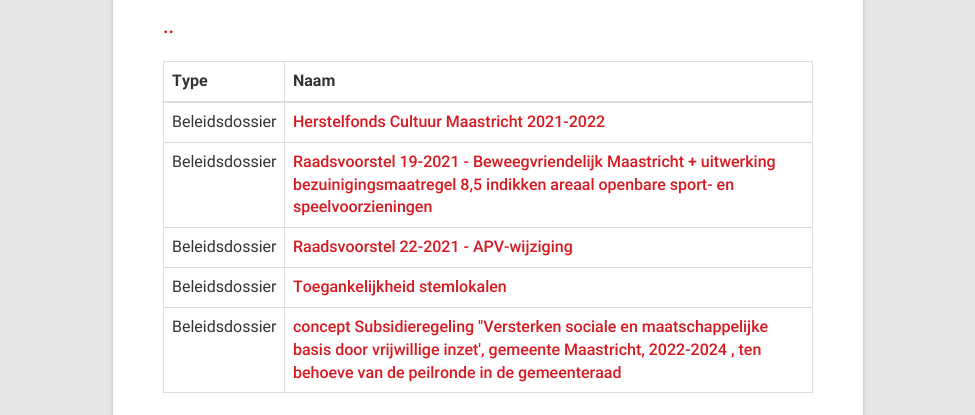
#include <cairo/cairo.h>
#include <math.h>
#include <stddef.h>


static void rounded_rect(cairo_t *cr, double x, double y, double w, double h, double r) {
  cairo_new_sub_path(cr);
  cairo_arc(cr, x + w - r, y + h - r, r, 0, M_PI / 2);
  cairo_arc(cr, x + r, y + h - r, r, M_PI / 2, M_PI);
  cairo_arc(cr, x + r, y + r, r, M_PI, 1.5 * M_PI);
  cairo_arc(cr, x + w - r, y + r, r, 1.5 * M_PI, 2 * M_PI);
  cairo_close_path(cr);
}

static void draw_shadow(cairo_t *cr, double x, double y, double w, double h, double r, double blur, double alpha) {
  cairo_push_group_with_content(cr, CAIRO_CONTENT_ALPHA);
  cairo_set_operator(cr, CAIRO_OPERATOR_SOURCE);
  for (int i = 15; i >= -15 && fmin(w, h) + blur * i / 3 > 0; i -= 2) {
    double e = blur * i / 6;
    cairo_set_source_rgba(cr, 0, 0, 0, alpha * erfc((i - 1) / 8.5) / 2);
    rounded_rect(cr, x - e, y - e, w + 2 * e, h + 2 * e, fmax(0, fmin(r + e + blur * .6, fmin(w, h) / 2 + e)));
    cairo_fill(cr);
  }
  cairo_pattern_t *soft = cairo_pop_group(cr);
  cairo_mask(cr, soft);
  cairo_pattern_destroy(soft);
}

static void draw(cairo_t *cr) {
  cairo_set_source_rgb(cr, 230 / 255.0, 230 / 255.0, 230 / 255.0);
  cairo_paint(cr);
  cairo_set_source_rgb(cr, 0, 0, 0);
  draw_shadow(cr, 113, -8, 750, 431, 0, 2.5, 0.12);
  draw_shadow(cr, 113, -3, 750, 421, 0, 1, 0.14);
  cairo_set_source_rgb(cr, 1, 1, 1);
  cairo_rectangle(cr, 113, 0, 750, 415);
  cairo_fill(cr);
  cairo_set_source_rgb(cr, 221 / 255.0, 221 / 255.0, 221 / 255.0);
  cairo_rectangle(cr, 163, 61, 650, 1);
  cairo_fill(cr);
  cairo_rectangle(cr, 812, 61, 1, 332);
  cairo_fill(cr);
  cairo_rectangle(cr, 163, 392, 650, 1);
  cairo_fill(cr);
  cairo_rectangle(cr, 163, 61, 1, 332);
  cairo_fill(cr);
  cairo_rectangle(cr, 284, 142, 529, 1);
  cairo_fill(cr);
  cairo_rectangle(cr, 284, 227, 529, 1);
  cairo_fill(cr);
  cairo_rectangle(cr, 284, 267, 529, 1);
  cairo_fill(cr);
  cairo_rectangle(cr, 284, 307, 529, 1);
  cairo_fill(cr);
  cairo_rectangle(cr, 284, 307, 1, 86);
  cairo_fill(cr);
  cairo_rectangle(cr, 163, 307, 122, 1);
  cairo_fill(cr);
  cairo_rectangle(cr, 284, 267, 1, 41);
  cairo_fill(cr);
  cairo_rectangle(cr, 163, 267, 122, 1);
  cairo_fill(cr);
  cairo_rectangle(cr, 284, 227, 1, 41);
  cairo_fill(cr);
  cairo_rectangle(cr, 163, 227, 122, 1);
  cairo_fill(cr);
  cairo_rectangle(cr, 284, 142, 1, 86);
  cairo_fill(cr);
  cairo_rectangle(cr, 163, 142, 122, 1);
  cairo_fill(cr);
  cairo_rectangle(cr, 284, 61, 1, 82);
  cairo_fill(cr);
  cairo_rectangle(cr, 162, 101, 651, 2);
  cairo_fill(cr);
  cairo_select_font_face(cr, "Roboto Medium", CAIRO_FONT_SLANT_NORMAL, CAIRO_FONT_WEIGHT_NORMAL);
  cairo_set_font_size(cr, 20);
  cairo_set_source_rgb(cr, 215 / 255.0, 25 / 255.0, 32 / 255.0);
  cairo_move_to(cr, 163, 33);
  cairo_show_text(cr, "..");
  cairo_select_font_face(cr, "Roboto", CAIRO_FONT_SLANT_NORMAL, CAIRO_FONT_WEIGHT_BOLD);
  cairo_set_font_size(cr, 16);
  cairo_set_source_rgb(cr, 51 / 255.0, 51 / 255.0, 51 / 255.0);
  cairo_move_to(cr, 172, 86);
  cairo_show_text(cr, "Type");
  cairo_move_to(cr, 293, 86);
  cairo_show_text(cr, "Naam");
  cairo_select_font_face(cr, "Roboto", CAIRO_FONT_SLANT_NORMAL, CAIRO_FONT_WEIGHT_NORMAL);
  cairo_move_to(cr, 172, 127);
  cairo_show_text(cr, "Beleidsdossier");
  cairo_select_font_face(cr, "Roboto Medium", CAIRO_FONT_SLANT_NORMAL, CAIRO_FONT_WEIGHT_NORMAL);
  cairo_set_source_rgb(cr, 215 / 255.0, 25 / 255.0, 32 / 255.0);
  cairo_move_to(cr, 293, 127);
  cairo_show_text(cr, "Herstelfonds Cultuur Maastricht 2021-2022");
  cairo_select_font_face(cr, "Roboto", CAIRO_FONT_SLANT_NORMAL, CAIRO_FONT_WEIGHT_NORMAL);
  cairo_set_source_rgb(cr, 51 / 255.0, 51 / 255.0, 51 / 255.0);
  cairo_move_to(cr, 172, 167);
  cairo_show_text(cr, "Beleidsdossier");
  cairo_select_font_face(cr, "Roboto Medium", CAIRO_FONT_SLANT_NORMAL, CAIRO_FONT_WEIGHT_NORMAL);
  cairo_set_source_rgb(cr, 215 / 255.0, 25 / 255.0, 32 / 255.0);
  cairo_move_to(cr, 293, 167);
  cairo_show_text(cr, "Raadsvoorstel 19-2021 - Beweegvriendelijk Maastricht + uitwerking");
  cairo_move_to(cr, 293, 190);
  cairo_show_text(cr, "bezuinigingsmaatregel 8,5 indikken areaal openbare sport- en");
  cairo_move_to(cr, 293, 212);
  cairo_show_text(cr, "speelvoorzieningen");
  cairo_select_font_face(cr, "Roboto", CAIRO_FONT_SLANT_NORMAL, CAIRO_FONT_WEIGHT_NORMAL);
  cairo_set_source_rgb(cr, 51 / 255.0, 51 / 255.0, 51 / 255.0);
  cairo_move_to(cr, 172, 252);
  cairo_show_text(cr, "Beleidsdossier");
  cairo_select_font_face(cr, "Roboto Medium", CAIRO_FONT_SLANT_NORMAL, CAIRO_FONT_WEIGHT_NORMAL);
  cairo_set_source_rgb(cr, 215 / 255.0, 25 / 255.0, 32 / 255.0);
  cairo_move_to(cr, 293, 252);
  cairo_show_text(cr, "Raadsvoorstel 22-2021 - APV-wijziging");
  cairo_select_font_face(cr, "Roboto", CAIRO_FONT_SLANT_NORMAL, CAIRO_FONT_WEIGHT_NORMAL);
  cairo_set_source_rgb(cr, 51 / 255.0, 51 / 255.0, 51 / 255.0);
  cairo_move_to(cr, 172, 292);
  cairo_show_text(cr, "Beleidsdossier");
  cairo_select_font_face(cr, "Roboto Medium", CAIRO_FONT_SLANT_NORMAL, CAIRO_FONT_WEIGHT_NORMAL);
  cairo_set_source_rgb(cr, 215 / 255.0, 25 / 255.0, 32 / 255.0);
  cairo_move_to(cr, 293, 292);
  cairo_show_text(cr, "Toegankelijkheid stemlokalen");
  cairo_select_font_face(cr, "Roboto", CAIRO_FONT_SLANT_NORMAL, CAIRO_FONT_WEIGHT_NORMAL);
  cairo_set_source_rgb(cr, 51 / 255.0, 51 / 255.0, 51 / 255.0);
  cairo_move_to(cr, 172, 332);
  cairo_show_text(cr, "Beleidsdossier");
  cairo_select_font_face(cr, "Roboto Medium", CAIRO_FONT_SLANT_NORMAL, CAIRO_FONT_WEIGHT_NORMAL);
  cairo_set_source_rgb(cr, 215 / 255.0, 25 / 255.0, 32 / 255.0);
  cairo_move_to(cr, 293, 332);
  cairo_show_text(cr, "concept Subsidieregeling \"Versterken sociale en maatschappelijke");
  cairo_move_to(cr, 293, 355);
  cairo_show_text(cr, "basis door vrijwillige inzet', gemeente Maastricht, 2022-2024 , ten");
  cairo_move_to(cr, 293, 378);
  cairo_show_text(cr, "behoeve van de peilronde in de gemeenteraad");
}

int main(void) {
  cairo_surface_t *surface = cairo_image_surface_create(CAIRO_FORMAT_RGB24, 975, 415);
  cairo_t *cr = cairo_create(surface);
  cairo_font_options_t *options = cairo_font_options_create();
  cairo_font_options_set_hint_metrics(options, CAIRO_HINT_METRICS_OFF);
  cairo_font_options_set_hint_style(options, CAIRO_HINT_STYLE_NONE);
  cairo_set_font_options(cr, options);
  cairo_set_miter_limit(cr, 4);
  draw(cr);
  cairo_surface_write_to_png(surface, "out.png");
  cairo_font_options_destroy(options);
  cairo_destroy(cr);
  cairo_surface_destroy(surface);
  return 0;
}
